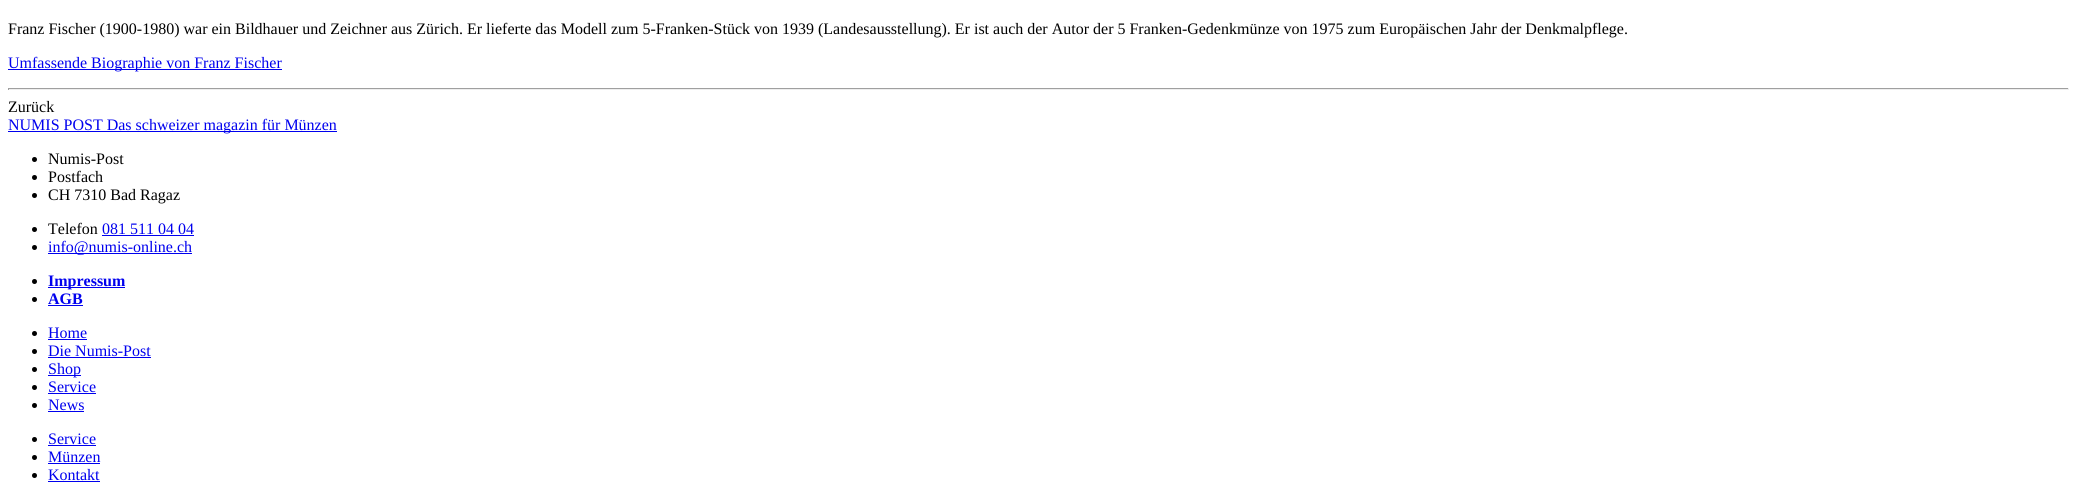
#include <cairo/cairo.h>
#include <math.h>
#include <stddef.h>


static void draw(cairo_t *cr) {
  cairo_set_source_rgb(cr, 1, 1, 1);
  cairo_paint(cr);
  cairo_set_source_rgb(cr, 0, 0, 238 / 255.0);
  cairo_rectangle(cr, 8, 69, 274, 1);
  cairo_fill(cr);
  cairo_set_source_rgb(cr, 159 / 255.0, 159 / 255.0, 159 / 255.0);
  cairo_rectangle(cr, 8, 88, 2061, 1);
  cairo_fill(cr);
  cairo_set_source_rgb(cr, 238 / 255.0, 238 / 255.0, 238 / 255.0);
  cairo_rectangle(cr, 2068, 88, 1, 2);
  cairo_fill(cr);
  cairo_rectangle(cr, 8, 89, 2061, 1);
  cairo_fill(cr);
  cairo_set_source_rgb(cr, 159 / 255.0, 159 / 255.0, 159 / 255.0);
  cairo_rectangle(cr, 8, 88, 1, 2);
  cairo_fill(cr);
  cairo_set_source_rgb(cr, 0, 0, 238 / 255.0);
  cairo_rectangle(cr, 8, 131, 329, 1);
  cairo_fill(cr);
  cairo_set_source_rgb(cr, 0, 0, 0);
  cairo_arc(cr, 34.5, 159.5, 2.5, 0, 2 * M_PI);
  cairo_fill(cr);
  cairo_arc(cr, 34.5, 177.5, 2.5, 0, 2 * M_PI);
  cairo_fill(cr);
  cairo_arc(cr, 34.5, 195.5, 2.5, 0, 2 * M_PI);
  cairo_fill(cr);
  cairo_arc(cr, 34.5, 229.5, 2.5, 0, 2 * M_PI);
  cairo_fill(cr);
  cairo_set_source_rgb(cr, 0, 0, 238 / 255.0);
  cairo_rectangle(cr, 102, 235, 92, 1);
  cairo_fill(cr);
  cairo_set_source_rgb(cr, 0, 0, 0);
  cairo_arc(cr, 34.5, 247.5, 2.5, 0, 2 * M_PI);
  cairo_fill(cr);
  cairo_set_source_rgb(cr, 0, 0, 238 / 255.0);
  cairo_rectangle(cr, 48, 253, 144, 1);
  cairo_fill(cr);
  cairo_set_source_rgb(cr, 0, 0, 0);
  cairo_arc(cr, 34.5, 281.5, 2.5, 0, 2 * M_PI);
  cairo_fill(cr);
  cairo_set_source_rgb(cr, 0, 0, 238 / 255.0);
  cairo_rectangle(cr, 48, 287, 77, 1);
  cairo_fill(cr);
  cairo_set_source_rgb(cr, 0, 0, 0);
  cairo_arc(cr, 34.5, 299.5, 2.5, 0, 2 * M_PI);
  cairo_fill(cr);
  cairo_set_source_rgb(cr, 0, 0, 238 / 255.0);
  cairo_rectangle(cr, 48, 305, 35, 1);
  cairo_fill(cr);
  cairo_set_source_rgb(cr, 0, 0, 0);
  cairo_arc(cr, 34.5, 333.5, 2.5, 0, 2 * M_PI);
  cairo_fill(cr);
  cairo_set_source_rgb(cr, 0, 0, 238 / 255.0);
  cairo_rectangle(cr, 48, 339, 39, 1);
  cairo_fill(cr);
  cairo_set_source_rgb(cr, 0, 0, 0);
  cairo_arc(cr, 34.5, 351.5, 2.5, 0, 2 * M_PI);
  cairo_fill(cr);
  cairo_set_source_rgb(cr, 0, 0, 238 / 255.0);
  cairo_rectangle(cr, 48, 357, 103, 1);
  cairo_fill(cr);
  cairo_set_source_rgb(cr, 0, 0, 0);
  cairo_arc(cr, 34.5, 369.5, 2.5, 0, 2 * M_PI);
  cairo_fill(cr);
  cairo_set_source_rgb(cr, 0, 0, 238 / 255.0);
  cairo_rectangle(cr, 48, 375, 33, 1);
  cairo_fill(cr);
  cairo_set_source_rgb(cr, 0, 0, 0);
  cairo_arc(cr, 34.5, 387.5, 2.5, 0, 2 * M_PI);
  cairo_fill(cr);
  cairo_set_source_rgb(cr, 0, 0, 238 / 255.0);
  cairo_rectangle(cr, 48, 393, 48, 1);
  cairo_fill(cr);
  cairo_set_source_rgb(cr, 0, 0, 0);
  cairo_arc(cr, 34.5, 405.5, 2.5, 0, 2 * M_PI);
  cairo_fill(cr);
  cairo_set_source_rgb(cr, 0, 0, 238 / 255.0);
  cairo_rectangle(cr, 48, 411, 36, 1);
  cairo_fill(cr);
  cairo_set_source_rgb(cr, 0, 0, 0);
  cairo_arc(cr, 34.5, 439.5, 2.5, 0, 2 * M_PI);
  cairo_fill(cr);
  cairo_set_source_rgb(cr, 0, 0, 238 / 255.0);
  cairo_rectangle(cr, 48, 445, 48, 1);
  cairo_fill(cr);
  cairo_set_source_rgb(cr, 0, 0, 0);
  cairo_arc(cr, 34.5, 457.5, 2.5, 0, 2 * M_PI);
  cairo_fill(cr);
  cairo_set_source_rgb(cr, 0, 0, 238 / 255.0);
  cairo_rectangle(cr, 48, 463, 52, 1);
  cairo_fill(cr);
  cairo_set_source_rgb(cr, 0, 0, 0);
  cairo_arc(cr, 34.5, 475.5, 2.5, 0, 2 * M_PI);
  cairo_fill(cr);
  cairo_set_source_rgb(cr, 0, 0, 238 / 255.0);
  cairo_rectangle(cr, 48, 481, 52, 1);
  cairo_fill(cr);
  cairo_select_font_face(cr, "Liberation Serif", CAIRO_FONT_SLANT_NORMAL, CAIRO_FONT_WEIGHT_NORMAL);
  cairo_set_font_size(cr, 16);
  cairo_set_source_rgb(cr, 0, 0, 0);
  cairo_move_to(cr, 8, 34);
  cairo_show_text(cr, "Franz Fischer (1900-1980) war ein Bildhauer und Zeichner aus Zürich. Er lieferte das Modell zum 5-Franken-Stück von 1939 (Landesausstellung). Er ist auch der Autor der 5 Franken-Gedenkmünze von 1975 zum Europäischen Jahr der Denkmalpflege.");
  cairo_set_source_rgb(cr, 0, 0, 238 / 255.0);
  cairo_move_to(cr, 8, 68);
  cairo_show_text(cr, "Umfassende Biographie von Franz Fischer");
  cairo_set_source_rgb(cr, 0, 0, 0);
  cairo_move_to(cr, 8, 112);
  cairo_show_text(cr, "Zurück");
  cairo_set_source_rgb(cr, 0, 0, 238 / 255.0);
  cairo_move_to(cr, 8, 130);
  cairo_show_text(cr, "NUMIS POST Das schweizer magazin für Münzen");
  cairo_set_source_rgb(cr, 0, 0, 0);
  cairo_move_to(cr, 48, 164);
  cairo_show_text(cr, "Numis-Post");
  cairo_move_to(cr, 48, 182);
  cairo_show_text(cr, "Postfach");
  cairo_move_to(cr, 48, 200);
  cairo_show_text(cr, "CH 7310 Bad Ragaz");
  cairo_move_to(cr, 48, 234);
  cairo_show_text(cr, "Telefon");
  cairo_set_source_rgb(cr, 0, 0, 238 / 255.0);
  cairo_move_to(cr, 102, 234);
  cairo_show_text(cr, "081 511 04 04");
  cairo_move_to(cr, 48, 252);
  cairo_show_text(cr, "info@numis-online.ch");
  cairo_select_font_face(cr, "Liberation Serif", CAIRO_FONT_SLANT_NORMAL, CAIRO_FONT_WEIGHT_BOLD);
  cairo_move_to(cr, 48, 286);
  cairo_show_text(cr, "Impressum");
  cairo_move_to(cr, 48, 304);
  cairo_show_text(cr, "AGB");
  cairo_select_font_face(cr, "Liberation Serif", CAIRO_FONT_SLANT_NORMAL, CAIRO_FONT_WEIGHT_NORMAL);
  cairo_move_to(cr, 48, 338);
  cairo_show_text(cr, "Home");
  cairo_move_to(cr, 48, 356);
  cairo_show_text(cr, "Die Numis-Post");
  cairo_move_to(cr, 48, 374);
  cairo_show_text(cr, "Shop");
  cairo_move_to(cr, 48, 392);
  cairo_show_text(cr, "Service");
  cairo_move_to(cr, 48, 410);
  cairo_show_text(cr, "News");
  cairo_move_to(cr, 48, 444);
  cairo_show_text(cr, "Service");
  cairo_move_to(cr, 48, 462);
  cairo_show_text(cr, "Münzen");
  cairo_move_to(cr, 48, 480);
  cairo_show_text(cr, "Kontakt");
}

int main(void) {
  cairo_surface_t *surface = cairo_image_surface_create(CAIRO_FORMAT_RGB24, 2077, 500);
  cairo_t *cr = cairo_create(surface);
  cairo_font_options_t *options = cairo_font_options_create();
  cairo_font_options_set_hint_metrics(options, CAIRO_HINT_METRICS_OFF);
  cairo_font_options_set_hint_style(options, CAIRO_HINT_STYLE_NONE);
  cairo_set_font_options(cr, options);
  cairo_set_miter_limit(cr, 4);
  draw(cr);
  cairo_surface_write_to_png(surface, "out.png");
  cairo_font_options_destroy(options);
  cairo_destroy(cr);
  cairo_surface_destroy(surface);
  return 0;
}
